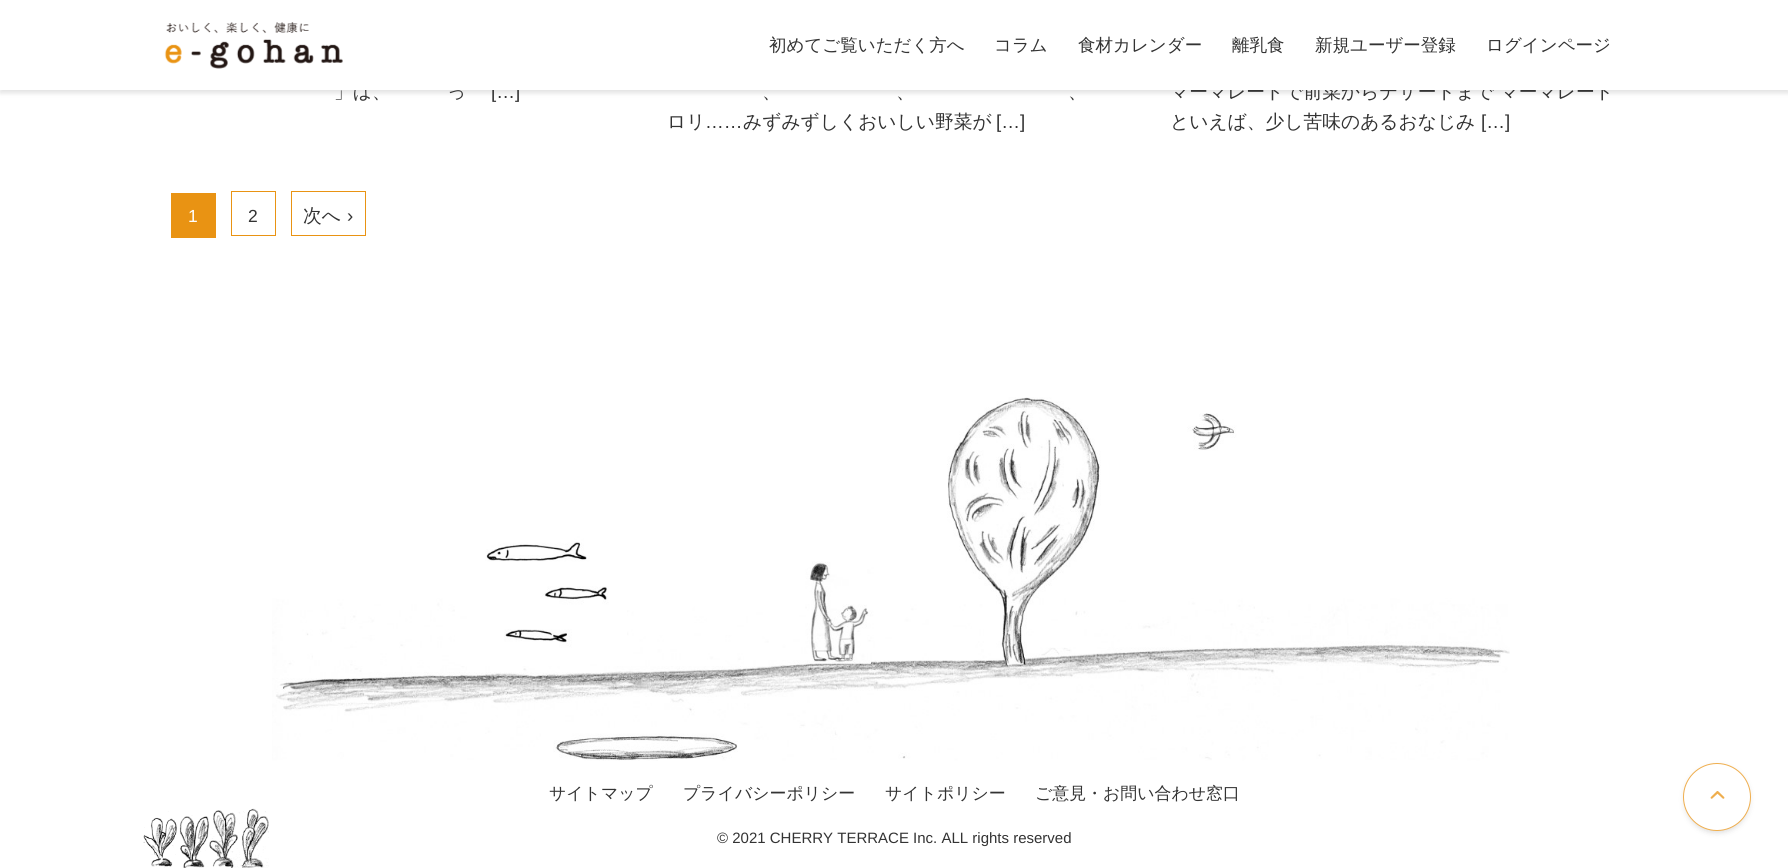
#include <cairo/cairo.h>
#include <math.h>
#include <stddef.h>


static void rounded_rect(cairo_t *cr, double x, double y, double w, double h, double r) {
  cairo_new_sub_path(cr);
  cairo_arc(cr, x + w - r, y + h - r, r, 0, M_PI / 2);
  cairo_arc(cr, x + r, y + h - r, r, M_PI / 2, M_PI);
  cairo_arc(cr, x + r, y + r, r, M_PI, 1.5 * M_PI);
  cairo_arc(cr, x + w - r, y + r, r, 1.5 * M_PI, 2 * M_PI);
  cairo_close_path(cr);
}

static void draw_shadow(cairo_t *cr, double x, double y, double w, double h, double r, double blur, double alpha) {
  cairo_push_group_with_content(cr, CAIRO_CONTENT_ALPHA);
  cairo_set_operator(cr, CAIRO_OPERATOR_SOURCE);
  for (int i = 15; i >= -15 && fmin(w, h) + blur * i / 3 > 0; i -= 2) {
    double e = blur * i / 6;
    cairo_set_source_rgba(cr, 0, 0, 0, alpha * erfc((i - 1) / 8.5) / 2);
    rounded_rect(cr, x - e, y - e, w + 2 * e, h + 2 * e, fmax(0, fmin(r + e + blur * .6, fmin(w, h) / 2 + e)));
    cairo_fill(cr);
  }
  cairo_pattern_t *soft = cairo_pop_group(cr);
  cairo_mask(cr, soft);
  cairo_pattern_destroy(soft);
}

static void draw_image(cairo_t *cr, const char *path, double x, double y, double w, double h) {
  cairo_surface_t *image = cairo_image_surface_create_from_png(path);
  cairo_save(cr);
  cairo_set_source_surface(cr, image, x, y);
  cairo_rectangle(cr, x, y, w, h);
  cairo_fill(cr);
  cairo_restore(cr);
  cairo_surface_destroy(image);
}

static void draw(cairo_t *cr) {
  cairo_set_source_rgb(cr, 1, 1, 1);
  cairo_paint(cr);
  cairo_set_source_rgb(cr, 0, 0, 0);
  draw_shadow(cr, 0, 3, 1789, 90, 0, 2.5, 0.12);
  cairo_set_source_rgb(cr, 233 / 255.0, 147 / 255.0, 19 / 255.0);
  cairo_rectangle(cr, 171, 193, 45, 45);
  cairo_fill(cr);
  cairo_rectangle(cr, 231.5, 191.5, 44, 44);
  cairo_set_line_width(cr, 1);
  cairo_stroke(cr);
  cairo_rectangle(cr, 291.5, 191.5, 74, 44);
  cairo_stroke(cr);
  draw_image(cr, "images/2.png", 272, 397, 1238, 364);
  draw_image(cr, "images/3.png", 143, 808, 126, 60);
  cairo_set_source_rgb(cr, 64 / 255.0, 64 / 255.0, 64 / 255.0);
  draw_shadow(cr, 1688, 773, 58, 58, 29, 2.5, 0.1);
  draw_shadow(cr, 1683, 765, 68, 69, 34, 2.5, 0.1);
  cairo_set_source_rgb(cr, 1, 1, 1);
  cairo_arc(cr, 1717, 797, 33.5, 0, 2 * M_PI);
  cairo_fill_preserve(cr);
  cairo_set_source_rgb(cr, 239 / 255.0, 174 / 255.0, 78 / 255.0);
  cairo_stroke(cr);
  draw_image(cr, "images/4.png", 1710, 791, 15, 8);
  cairo_select_font_face(cr, "WenQuanYi Zen Hei Medium", CAIRO_FONT_SLANT_NORMAL, CAIRO_FONT_WEIGHT_NORMAL);
  cairo_set_font_size(cr, 18.75);
  cairo_set_source_rgb(cr, 51 / 255.0, 51 / 255.0, 51 / 255.0);
  cairo_move_to(cr, 334, 98);
  cairo_show_text(cr, "」は、");
  cairo_move_to(cr, 447, 98);
  cairo_show_text(cr, "っ");
  cairo_select_font_face(cr, "Liberation Sans", CAIRO_FONT_SLANT_NORMAL, CAIRO_FONT_WEIGHT_NORMAL);
  cairo_move_to(cr, 491, 98);
  cairo_show_text(cr, "[…]");
  cairo_select_font_face(cr, "WenQuanYi Zen Hei Medium", CAIRO_FONT_SLANT_NORMAL, CAIRO_FONT_WEIGHT_NORMAL);
  cairo_move_to(cr, 1170, 98);
  cairo_show_text(cr, "マーマレードで前菜からデザートまで マーマレード");
  cairo_set_source_rgb(cr, 1, 1, 1);
  cairo_rectangle(cr, 0, 0, 1788, 90);
  cairo_fill(cr);
  cairo_set_font_size(cr, 17.5);
  cairo_set_source_rgb(cr, 51 / 255.0, 51 / 255.0, 51 / 255.0);
  cairo_move_to(cr, 1486, 51);
  cairo_show_text(cr, "ログインページ");
  cairo_move_to(cr, 1315, 51);
  cairo_show_text(cr, "新規ユーザー登録");
  cairo_move_to(cr, 1232, 51);
  cairo_show_text(cr, "離乳食");
  cairo_move_to(cr, 1078, 51);
  cairo_show_text(cr, "食材カレンダー");
  cairo_move_to(cr, 994, 51);
  cairo_show_text(cr, "コラム");
  cairo_move_to(cr, 769, 51);
  cairo_show_text(cr, "初めてご覧いただく方へ");
  draw_image(cr, "images/1.png", 164, 22, 179, 47);
  cairo_set_font_size(cr, 18.75);
  cairo_move_to(cr, 1170, 128);
  cairo_show_text(cr, "といえば、少し苦味のあるおなじみ");
  cairo_select_font_face(cr, "Liberation Sans", CAIRO_FONT_SLANT_NORMAL, CAIRO_FONT_WEIGHT_NORMAL);
  cairo_move_to(cr, 1481, 128);
  cairo_show_text(cr, "[…]");
  cairo_select_font_face(cr, "WenQuanYi Zen Hei Medium", CAIRO_FONT_SLANT_NORMAL, CAIRO_FONT_WEIGHT_NORMAL);
  cairo_move_to(cr, 762, 98);
  cairo_show_text(cr, "、");
  cairo_move_to(cr, 896, 98);
  cairo_show_text(cr, "、");
  cairo_move_to(cr, 1068, 98);
  cairo_show_text(cr, "、");
  cairo_move_to(cr, 667, 128);
  cairo_show_text(cr, "ロリ");
  cairo_select_font_face(cr, "Liberation Sans", CAIRO_FONT_SLANT_NORMAL, CAIRO_FONT_WEIGHT_NORMAL);
  cairo_move_to(cr, 705, 128);
  cairo_show_text(cr, "……");
  cairo_select_font_face(cr, "WenQuanYi Zen Hei Medium", CAIRO_FONT_SLANT_NORMAL, CAIRO_FONT_WEIGHT_NORMAL);
  cairo_move_to(cr, 743, 128);
  cairo_show_text(cr, "みずみずしくおいしい野菜が");
  cairo_select_font_face(cr, "Liberation Sans", CAIRO_FONT_SLANT_NORMAL, CAIRO_FONT_WEIGHT_NORMAL);
  cairo_move_to(cr, 996, 128);
  cairo_show_text(cr, "[…]");
  cairo_set_font_size(cr, 17.5);
  cairo_set_source_rgb(cr, 1, 1, 1);
  cairo_move_to(cr, 188, 222);
  cairo_show_text(cr, "1");
  cairo_set_source_rgb(cr, 51 / 255.0, 51 / 255.0, 51 / 255.0);
  cairo_move_to(cr, 248, 222);
  cairo_show_text(cr, "2");
  cairo_select_font_face(cr, "WenQuanYi Zen Hei Medium", CAIRO_FONT_SLANT_NORMAL, CAIRO_FONT_WEIGHT_NORMAL);
  cairo_set_font_size(cr, 18.75);
  cairo_move_to(cr, 303, 222);
  cairo_show_text(cr, "次へ");
  cairo_select_font_face(cr, "Liberation Sans", CAIRO_FONT_SLANT_NORMAL, CAIRO_FONT_WEIGHT_NORMAL);
  cairo_move_to(cr, 347, 222);
  cairo_show_text(cr, "›");
  cairo_select_font_face(cr, "WenQuanYi Zen Hei Medium", CAIRO_FONT_SLANT_NORMAL, CAIRO_FONT_WEIGHT_NORMAL);
  cairo_set_font_size(cr, 16.9);
  cairo_move_to(cr, 549, 799);
  cairo_show_text(cr, "サイトマップ");
  cairo_move_to(cr, 683, 799);
  cairo_show_text(cr, "プライバシーポリシー");
  cairo_move_to(cr, 885, 799);
  cairo_show_text(cr, "サイトポリシー");
  cairo_move_to(cr, 1035, 799);
  cairo_show_text(cr, "ご意見・お問い合わせ窓口");
  cairo_select_font_face(cr, "Liberation Sans", CAIRO_FONT_SLANT_NORMAL, CAIRO_FONT_WEIGHT_NORMAL);
  cairo_set_font_size(cr, 15);
  cairo_move_to(cr, 717, 843);
  cairo_show_text(cr, "© 2021 CHERRY TERRACE Inc. ALL rights reserved");
}

int main(void) {
  cairo_surface_t *surface = cairo_image_surface_create(CAIRO_FORMAT_RGB24, 1788, 868);
  cairo_t *cr = cairo_create(surface);
  cairo_font_options_t *options = cairo_font_options_create();
  cairo_font_options_set_hint_metrics(options, CAIRO_HINT_METRICS_OFF);
  cairo_font_options_set_hint_style(options, CAIRO_HINT_STYLE_NONE);
  cairo_set_font_options(cr, options);
  cairo_set_miter_limit(cr, 4);
  draw(cr);
  cairo_surface_write_to_png(surface, "out.png");
  cairo_font_options_destroy(options);
  cairo_destroy(cr);
  cairo_surface_destroy(surface);
  return 0;
}
